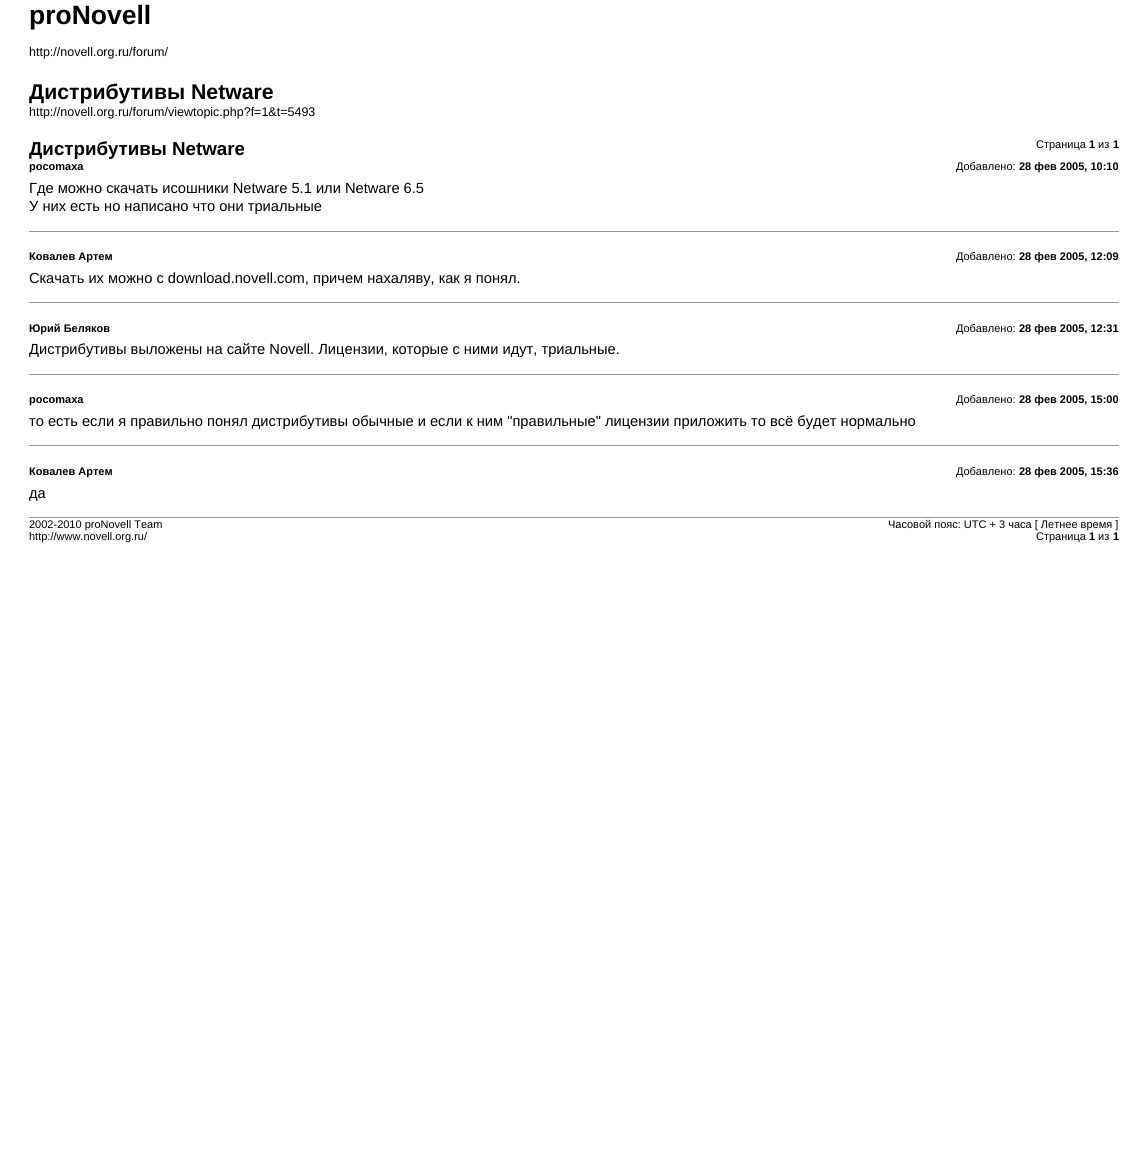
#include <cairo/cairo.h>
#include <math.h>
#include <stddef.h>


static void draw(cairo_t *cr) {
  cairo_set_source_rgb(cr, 1, 1, 1);
  cairo_paint(cr);
  cairo_set_source_rgb(cr, 153 / 255.0, 153 / 255.0, 153 / 255.0);
  cairo_rectangle(cr, 29, 231, 1090, 1);
  cairo_fill(cr);
  cairo_rectangle(cr, 29, 302, 1090, 1);
  cairo_fill(cr);
  cairo_rectangle(cr, 29, 374, 1090, 1);
  cairo_fill(cr);
  cairo_rectangle(cr, 29, 445, 1090, 1);
  cairo_fill(cr);
  cairo_rectangle(cr, 29, 517, 1090, 1);
  cairo_fill(cr);
  cairo_select_font_face(cr, "Liberation Sans", CAIRO_FONT_SLANT_NORMAL, CAIRO_FONT_WEIGHT_BOLD);
  cairo_set_font_size(cr, 26.5);
  cairo_set_source_rgb(cr, 0, 0, 0);
  cairo_move_to(cr, 29, 24);
  cairo_show_text(cr, "proNovell");
  cairo_select_font_face(cr, "Liberation Sans", CAIRO_FONT_SLANT_NORMAL, CAIRO_FONT_WEIGHT_NORMAL);
  cairo_set_font_size(cr, 12.5);
  cairo_move_to(cr, 29, 56);
  cairo_show_text(cr, "http://novell.org.ru/forum/");
  cairo_select_font_face(cr, "Liberation Sans", CAIRO_FONT_SLANT_NORMAL, CAIRO_FONT_WEIGHT_BOLD);
  cairo_set_font_size(cr, 21.25);
  cairo_move_to(cr, 29, 99);
  cairo_show_text(cr, "Дистрибутивы Netware");
  cairo_select_font_face(cr, "Liberation Sans", CAIRO_FONT_SLANT_NORMAL, CAIRO_FONT_WEIGHT_NORMAL);
  cairo_set_font_size(cr, 12.5);
  cairo_move_to(cr, 29, 116);
  cairo_show_text(cr, "http://novell.org.ru/forum/viewtopic.php?f=1&t=5493");
  cairo_set_font_size(cr, 11);
  cairo_move_to(cr, 1036, 148);
  cairo_show_text(cr, "Страница");
  cairo_select_font_face(cr, "Liberation Sans", CAIRO_FONT_SLANT_NORMAL, CAIRO_FONT_WEIGHT_BOLD);
  cairo_move_to(cr, 1089, 148);
  cairo_show_text(cr, "1");
  cairo_select_font_face(cr, "Liberation Sans", CAIRO_FONT_SLANT_NORMAL, CAIRO_FONT_WEIGHT_NORMAL);
  cairo_move_to(cr, 1098, 148);
  cairo_show_text(cr, "из");
  cairo_select_font_face(cr, "Liberation Sans", CAIRO_FONT_SLANT_NORMAL, CAIRO_FONT_WEIGHT_BOLD);
  cairo_move_to(cr, 1113, 148);
  cairo_show_text(cr, "1");
  cairo_set_font_size(cr, 18.75);
  cairo_move_to(cr, 29, 155);
  cairo_show_text(cr, "Дистрибутивы Netware");
  cairo_set_font_size(cr, 11);
  cairo_move_to(cr, 29, 170);
  cairo_show_text(cr, "pocomaxa");
  cairo_select_font_face(cr, "Liberation Sans", CAIRO_FONT_SLANT_NORMAL, CAIRO_FONT_WEIGHT_NORMAL);
  cairo_move_to(cr, 956, 170);
  cairo_show_text(cr, "Добавлено:");
  cairo_select_font_face(cr, "Liberation Sans", CAIRO_FONT_SLANT_NORMAL, CAIRO_FONT_WEIGHT_BOLD);
  cairo_move_to(cr, 1019, 170);
  cairo_show_text(cr, "28 фев 2005, 10:10");
  cairo_select_font_face(cr, "Liberation Sans", CAIRO_FONT_SLANT_NORMAL, CAIRO_FONT_WEIGHT_NORMAL);
  cairo_set_font_size(cr, 14.67);
  cairo_move_to(cr, 29, 193);
  cairo_show_text(cr, "Где можно скачать исошники Netware 5.1 или Netware 6.5");
  cairo_move_to(cr, 29, 211);
  cairo_show_text(cr, "У них есть но написано что они триальные");
  cairo_select_font_face(cr, "Liberation Sans", CAIRO_FONT_SLANT_NORMAL, CAIRO_FONT_WEIGHT_BOLD);
  cairo_set_font_size(cr, 11);
  cairo_move_to(cr, 29, 260);
  cairo_show_text(cr, "Ковалев Артем");
  cairo_select_font_face(cr, "Liberation Sans", CAIRO_FONT_SLANT_NORMAL, CAIRO_FONT_WEIGHT_NORMAL);
  cairo_move_to(cr, 956, 260);
  cairo_show_text(cr, "Добавлено:");
  cairo_select_font_face(cr, "Liberation Sans", CAIRO_FONT_SLANT_NORMAL, CAIRO_FONT_WEIGHT_BOLD);
  cairo_move_to(cr, 1019, 260);
  cairo_show_text(cr, "28 фев 2005, 12:09");
  cairo_select_font_face(cr, "Liberation Sans", CAIRO_FONT_SLANT_NORMAL, CAIRO_FONT_WEIGHT_NORMAL);
  cairo_set_font_size(cr, 14.67);
  cairo_move_to(cr, 29, 283);
  cairo_show_text(cr, "Скачать их можно с download.novell.com, причем нахаляву, как я понял.");
  cairo_select_font_face(cr, "Liberation Sans", CAIRO_FONT_SLANT_NORMAL, CAIRO_FONT_WEIGHT_BOLD);
  cairo_set_font_size(cr, 11);
  cairo_move_to(cr, 29, 332);
  cairo_show_text(cr, "Юрий Беляков");
  cairo_select_font_face(cr, "Liberation Sans", CAIRO_FONT_SLANT_NORMAL, CAIRO_FONT_WEIGHT_NORMAL);
  cairo_move_to(cr, 956, 332);
  cairo_show_text(cr, "Добавлено:");
  cairo_select_font_face(cr, "Liberation Sans", CAIRO_FONT_SLANT_NORMAL, CAIRO_FONT_WEIGHT_BOLD);
  cairo_move_to(cr, 1019, 332);
  cairo_show_text(cr, "28 фев 2005, 12:31");
  cairo_select_font_face(cr, "Liberation Sans", CAIRO_FONT_SLANT_NORMAL, CAIRO_FONT_WEIGHT_NORMAL);
  cairo_set_font_size(cr, 14.67);
  cairo_move_to(cr, 29, 354);
  cairo_show_text(cr, "Дистрибутивы выложены на сайте Novell. Лицензии, которые с ними идут, триальные.");
  cairo_select_font_face(cr, "Liberation Sans", CAIRO_FONT_SLANT_NORMAL, CAIRO_FONT_WEIGHT_BOLD);
  cairo_set_font_size(cr, 11);
  cairo_move_to(cr, 29, 403);
  cairo_show_text(cr, "pocomaxa");
  cairo_select_font_face(cr, "Liberation Sans", CAIRO_FONT_SLANT_NORMAL, CAIRO_FONT_WEIGHT_NORMAL);
  cairo_move_to(cr, 956, 403);
  cairo_show_text(cr, "Добавлено:");
  cairo_select_font_face(cr, "Liberation Sans", CAIRO_FONT_SLANT_NORMAL, CAIRO_FONT_WEIGHT_BOLD);
  cairo_move_to(cr, 1019, 403);
  cairo_show_text(cr, "28 фев 2005, 15:00");
  cairo_select_font_face(cr, "Liberation Sans", CAIRO_FONT_SLANT_NORMAL, CAIRO_FONT_WEIGHT_NORMAL);
  cairo_set_font_size(cr, 14.67);
  cairo_move_to(cr, 29, 426);
  cairo_show_text(cr, "то есть если я правильно понял дистрибутивы обычные и если к ним \"правильные\" лицензии приложить то всё будет нормально");
  cairo_select_font_face(cr, "Liberation Sans", CAIRO_FONT_SLANT_NORMAL, CAIRO_FONT_WEIGHT_BOLD);
  cairo_set_font_size(cr, 11);
  cairo_move_to(cr, 29, 475);
  cairo_show_text(cr, "Ковалев Артем");
  cairo_select_font_face(cr, "Liberation Sans", CAIRO_FONT_SLANT_NORMAL, CAIRO_FONT_WEIGHT_NORMAL);
  cairo_move_to(cr, 956, 475);
  cairo_show_text(cr, "Добавлено:");
  cairo_select_font_face(cr, "Liberation Sans", CAIRO_FONT_SLANT_NORMAL, CAIRO_FONT_WEIGHT_BOLD);
  cairo_move_to(cr, 1019, 475);
  cairo_show_text(cr, "28 фев 2005, 15:36");
  cairo_select_font_face(cr, "Liberation Sans", CAIRO_FONT_SLANT_NORMAL, CAIRO_FONT_WEIGHT_NORMAL);
  cairo_set_font_size(cr, 14.67);
  cairo_move_to(cr, 29, 498);
  cairo_show_text(cr, "да");
  cairo_set_font_size(cr, 11);
  cairo_move_to(cr, 29, 528);
  cairo_show_text(cr, "2002-2010 proNovell Team");
  cairo_move_to(cr, 29, 540);
  cairo_show_text(cr, "http://www.novell.org.ru/");
  cairo_move_to(cr, 888, 528);
  cairo_show_text(cr, "Часовой пояс: UTC + 3 часа [ Летнее время ]");
  cairo_move_to(cr, 1036, 540);
  cairo_show_text(cr, "Страница");
  cairo_select_font_face(cr, "Liberation Sans", CAIRO_FONT_SLANT_NORMAL, CAIRO_FONT_WEIGHT_BOLD);
  cairo_move_to(cr, 1089, 540);
  cairo_show_text(cr, "1");
  cairo_select_font_face(cr, "Liberation Sans", CAIRO_FONT_SLANT_NORMAL, CAIRO_FONT_WEIGHT_NORMAL);
  cairo_move_to(cr, 1098, 540);
  cairo_show_text(cr, "из");
  cairo_select_font_face(cr, "Liberation Sans", CAIRO_FONT_SLANT_NORMAL, CAIRO_FONT_WEIGHT_BOLD);
  cairo_move_to(cr, 1113, 540);
  cairo_show_text(cr, "1");
}

int main(void) {
  cairo_surface_t *surface = cairo_image_surface_create(CAIRO_FORMAT_RGB24, 1148, 1168);
  cairo_t *cr = cairo_create(surface);
  cairo_font_options_t *options = cairo_font_options_create();
  cairo_font_options_set_hint_metrics(options, CAIRO_HINT_METRICS_OFF);
  cairo_font_options_set_hint_style(options, CAIRO_HINT_STYLE_NONE);
  cairo_set_font_options(cr, options);
  cairo_set_miter_limit(cr, 4);
  draw(cr);
  cairo_surface_write_to_png(surface, "out.png");
  cairo_font_options_destroy(options);
  cairo_destroy(cr);
  cairo_surface_destroy(surface);
  return 0;
}
